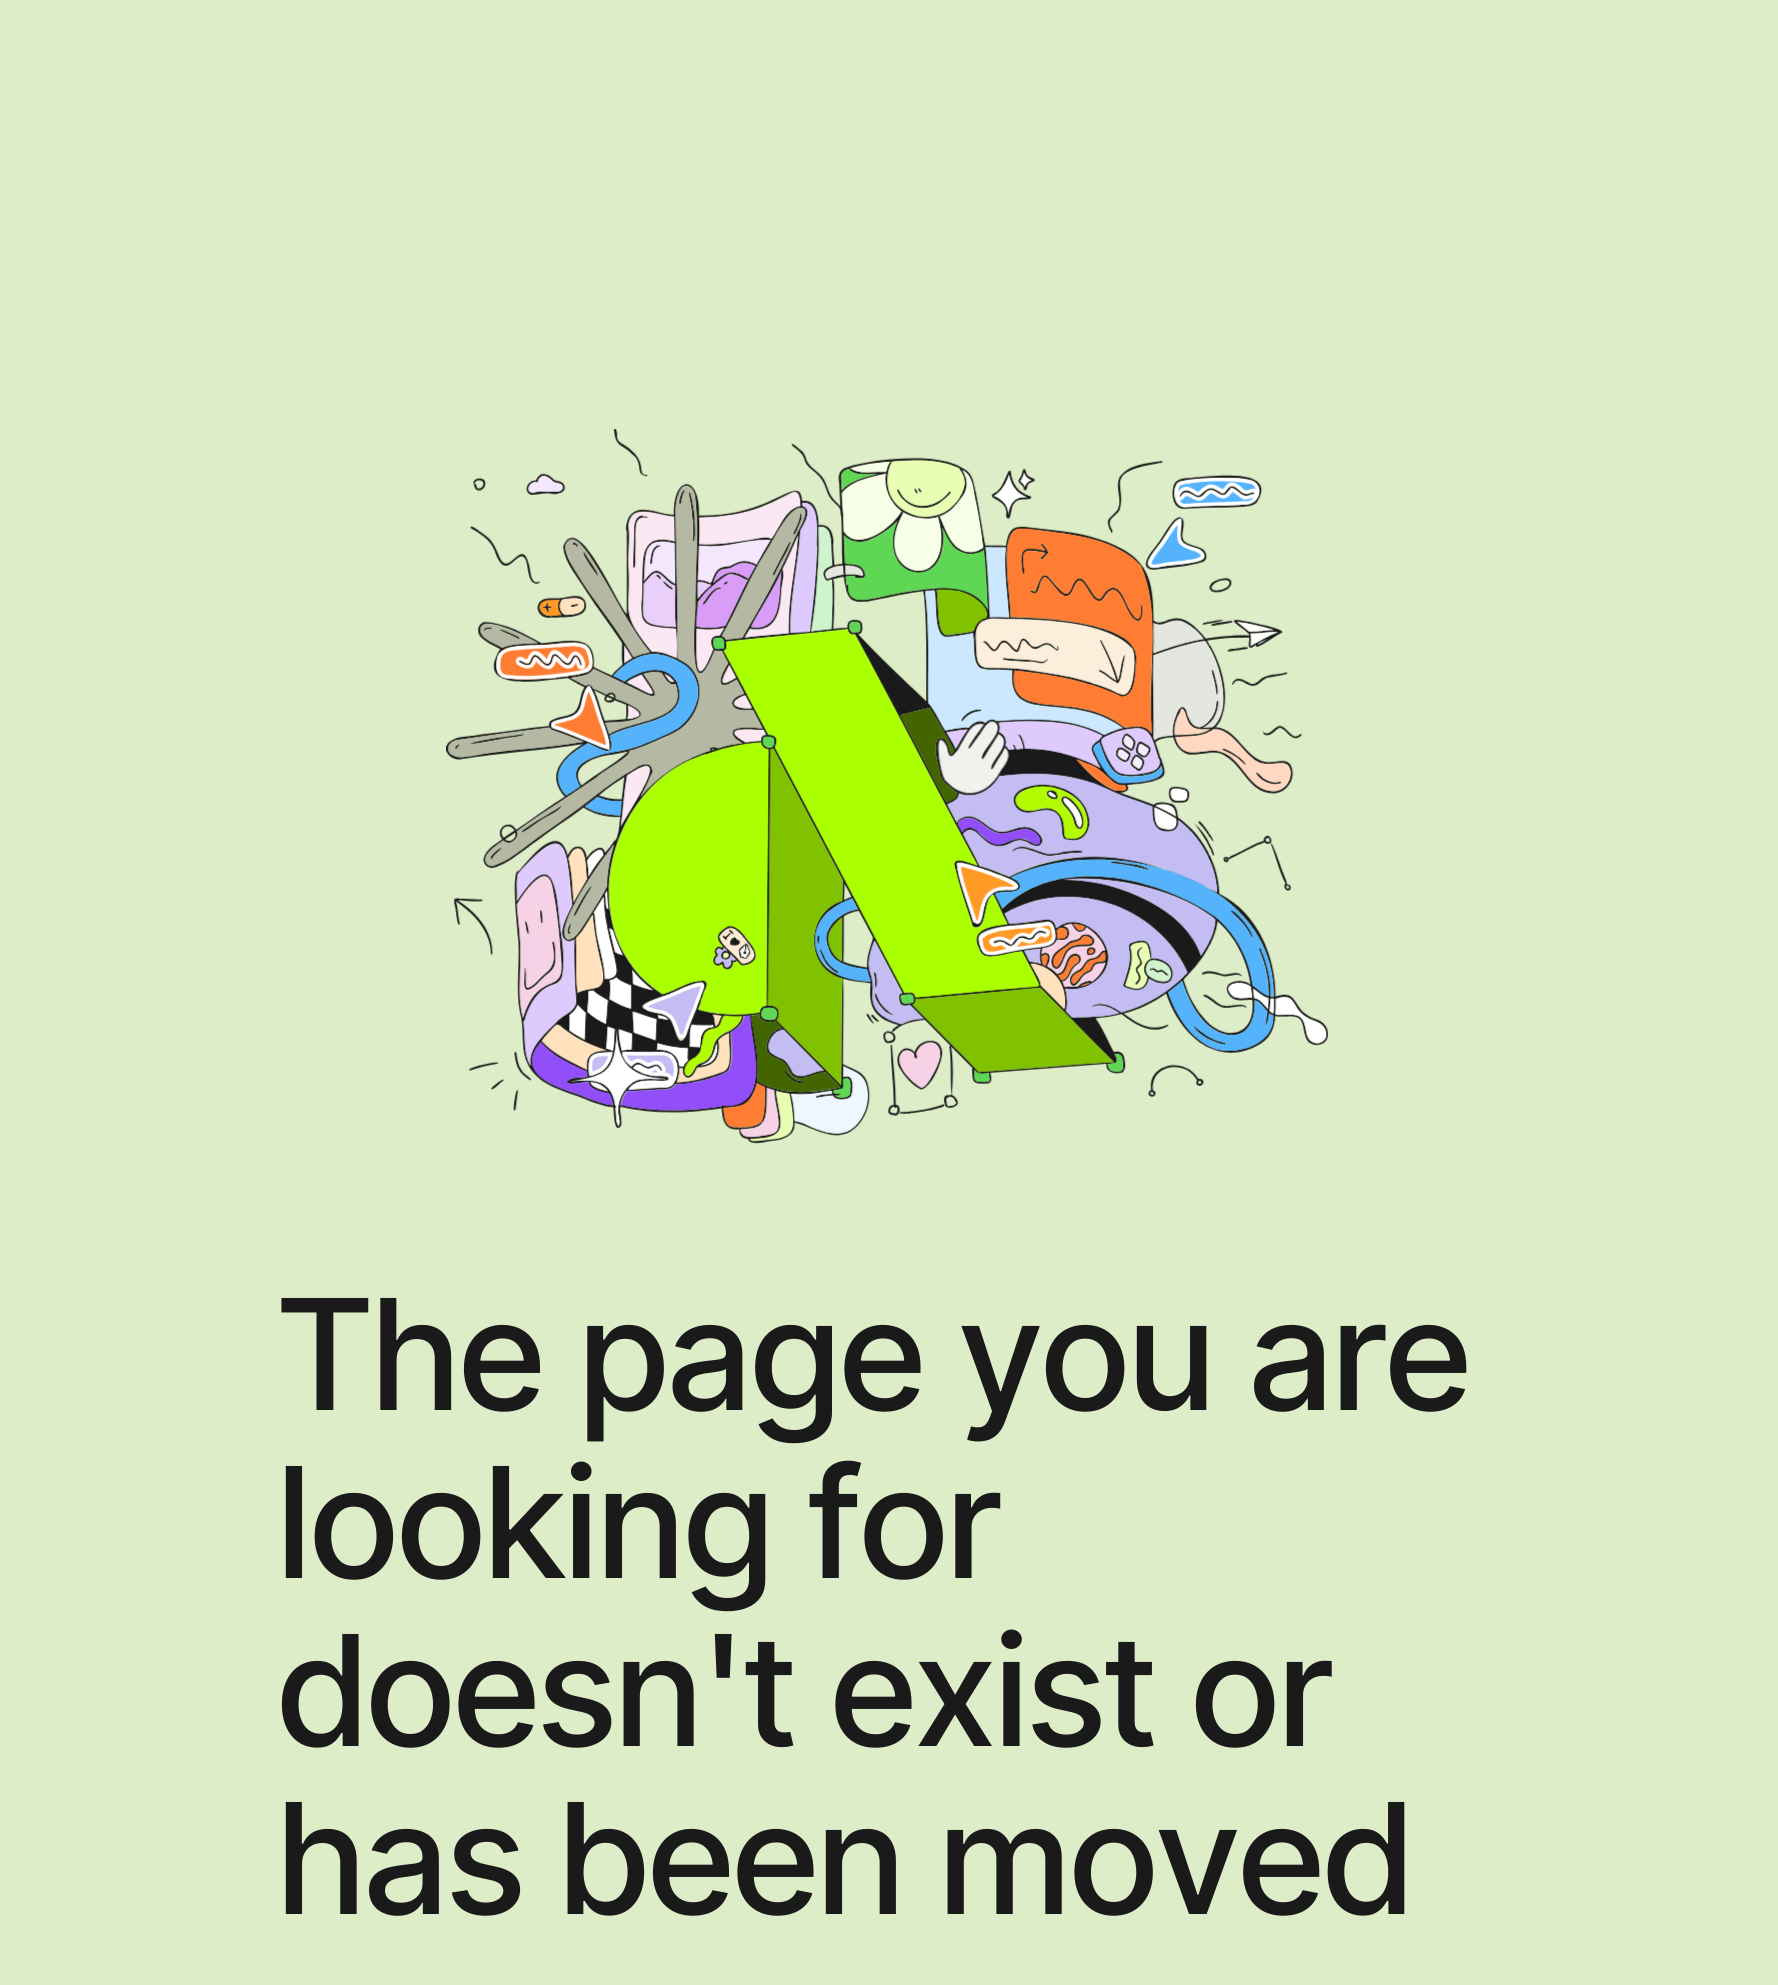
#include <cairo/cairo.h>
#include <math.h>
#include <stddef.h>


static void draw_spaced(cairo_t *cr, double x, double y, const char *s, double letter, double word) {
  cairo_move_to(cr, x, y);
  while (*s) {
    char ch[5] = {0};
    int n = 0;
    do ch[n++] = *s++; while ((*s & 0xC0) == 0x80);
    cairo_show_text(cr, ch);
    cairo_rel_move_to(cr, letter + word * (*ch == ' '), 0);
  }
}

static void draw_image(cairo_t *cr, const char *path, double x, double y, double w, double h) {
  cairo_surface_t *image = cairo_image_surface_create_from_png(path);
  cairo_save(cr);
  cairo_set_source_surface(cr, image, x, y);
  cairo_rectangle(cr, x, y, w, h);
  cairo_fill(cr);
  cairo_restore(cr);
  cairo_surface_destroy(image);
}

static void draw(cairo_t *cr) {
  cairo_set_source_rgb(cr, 220 / 255.0, 237 / 255.0, 200 / 255.0);
  cairo_paint(cr);
  draw_image(cr, "images/1.png", 446, 429, 882, 715);
  cairo_select_font_face(cr, "Inter Tight Medium", CAIRO_FONT_SLANT_NORMAL, CAIRO_FONT_WEIGHT_NORMAL);
  cairo_set_font_size(cr, 154);
  cairo_set_source_rgb(cr, 26 / 255.0, 26 / 255.0, 26 / 255.0);
  draw_spaced(cr, 278, 1410, "The page you are", 0.9, 0);
  draw_spaced(cr, 278, 1578, "looking for", 0.9, 0);
  draw_spaced(cr, 278, 1746, "doesn't exist or", 0.9, 0);
  draw_spaced(cr, 278, 1914, "has been moved", 0.9, 0);
}

int main(void) {
  cairo_surface_t *surface = cairo_image_surface_create(CAIRO_FORMAT_RGB24, 1778, 1985);
  cairo_t *cr = cairo_create(surface);
  cairo_font_options_t *options = cairo_font_options_create();
  cairo_font_options_set_hint_metrics(options, CAIRO_HINT_METRICS_OFF);
  cairo_font_options_set_hint_style(options, CAIRO_HINT_STYLE_NONE);
  cairo_set_font_options(cr, options);
  cairo_set_miter_limit(cr, 4);
  draw(cr);
  cairo_surface_write_to_png(surface, "out.png");
  cairo_font_options_destroy(options);
  cairo_destroy(cr);
  cairo_surface_destroy(surface);
  return 0;
}
